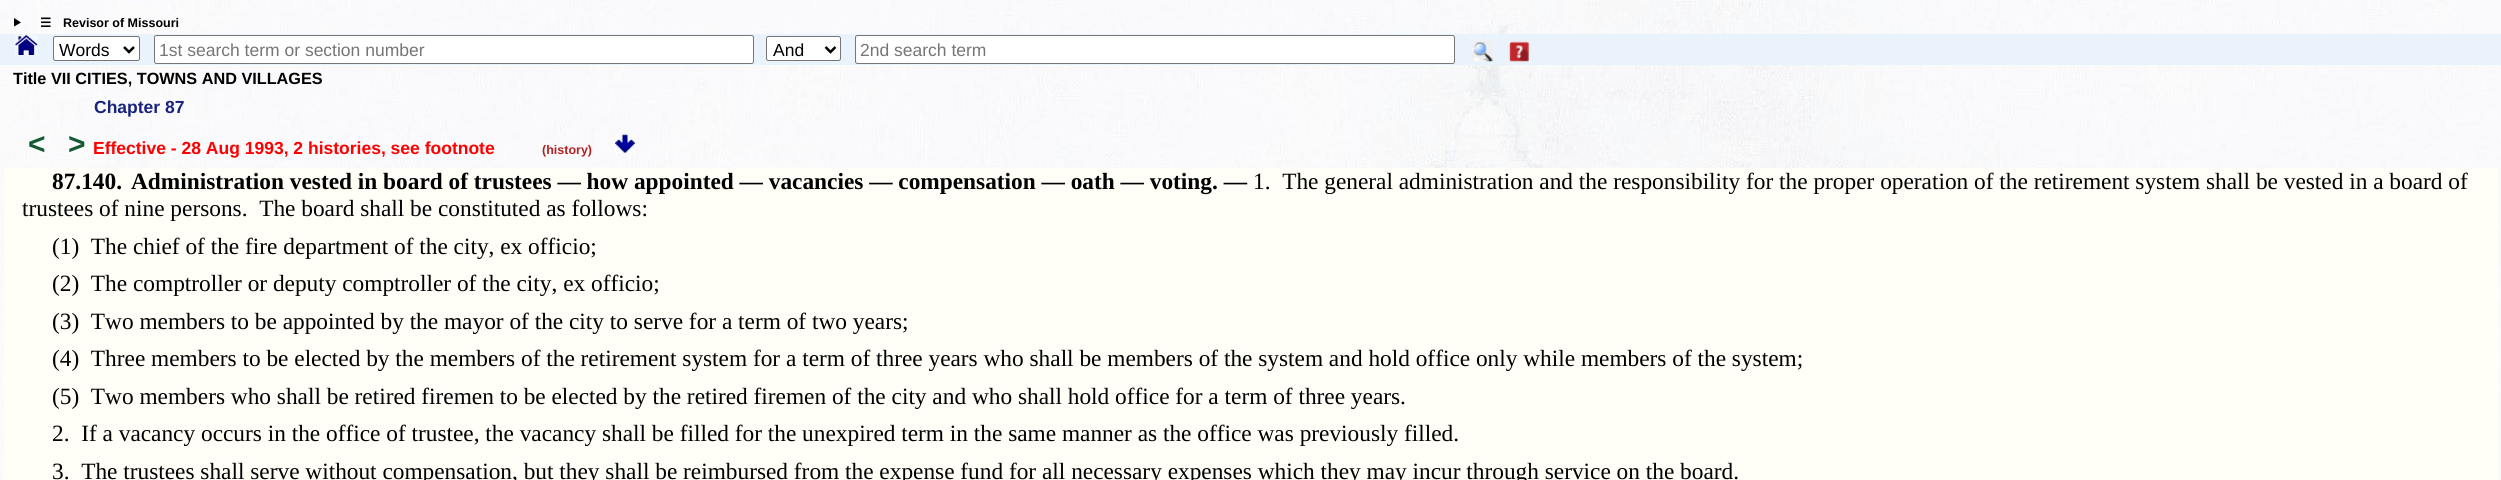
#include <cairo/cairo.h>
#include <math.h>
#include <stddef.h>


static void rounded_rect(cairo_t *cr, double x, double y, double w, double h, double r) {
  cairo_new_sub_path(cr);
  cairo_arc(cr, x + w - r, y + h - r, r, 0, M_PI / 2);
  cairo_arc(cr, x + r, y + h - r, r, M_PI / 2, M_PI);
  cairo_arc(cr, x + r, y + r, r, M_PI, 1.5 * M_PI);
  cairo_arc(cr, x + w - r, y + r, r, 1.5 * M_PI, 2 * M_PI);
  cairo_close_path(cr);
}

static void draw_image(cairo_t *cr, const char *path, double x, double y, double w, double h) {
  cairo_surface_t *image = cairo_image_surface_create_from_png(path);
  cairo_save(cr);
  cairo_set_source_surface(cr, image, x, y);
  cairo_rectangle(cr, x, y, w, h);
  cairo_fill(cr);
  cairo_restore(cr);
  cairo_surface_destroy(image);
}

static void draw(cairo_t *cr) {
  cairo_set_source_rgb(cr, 1, 1, 1);
  cairo_paint(cr);
  draw_image(cr, "images/1.png", 0, 0, 2501, 480);
  cairo_set_source_rgb(cr, 0, 0, 0);
  cairo_new_path(cr);
  cairo_move_to(cr, 14, 18);
  cairo_line_to(cr, 21, 22.5);
  cairo_line_to(cr, 14, 26.5);
  cairo_close_path(cr);
  cairo_fill(cr);
  cairo_set_source_rgb(cr, 234 / 255.0, 243 / 255.0, 251 / 255.0);
  cairo_rectangle(cr, 0, 34, 2501, 31);
  cairo_fill(cr);
  draw_image(cr, "images/2.png", 15, 35, 23, 20);
  cairo_set_source_rgb(cr, 1, 1, 1);
  rounded_rect(cr, 53.5, 36.5, 86, 24, 2);
  cairo_fill_preserve(cr);
  cairo_set_source_rgb(cr, 118 / 255.0, 118 / 255.0, 118 / 255.0);
  cairo_set_line_width(cr, 1);
  cairo_stroke(cr);
  cairo_new_path(cr);
  cairo_move_to(cr, 124, 47);
  cairo_line_to(cr, 129, 52);
  cairo_line_to(cr, 134, 47);
  cairo_set_source_rgb(cr, 0, 0, 0);
  cairo_set_line_width(cr, 2.5);
  cairo_stroke(cr);
  cairo_set_source_rgb(cr, 1, 1, 1);
  rounded_rect(cr, 154.5, 35.5, 599, 28, 2);
  cairo_fill_preserve(cr);
  cairo_set_source_rgb(cr, 118 / 255.0, 118 / 255.0, 118 / 255.0);
  cairo_set_line_width(cr, 1);
  cairo_stroke(cr);
  cairo_set_source_rgb(cr, 1, 1, 1);
  rounded_rect(cr, 766.5, 36.5, 74, 24, 2);
  cairo_fill_preserve(cr);
  cairo_set_source_rgb(cr, 118 / 255.0, 118 / 255.0, 118 / 255.0);
  cairo_stroke(cr);
  cairo_new_path(cr);
  cairo_move_to(cr, 825.5, 47);
  cairo_line_to(cr, 830.5, 52);
  cairo_line_to(cr, 835.5, 47);
  cairo_set_source_rgb(cr, 0, 0, 0);
  cairo_set_line_width(cr, 2.5);
  cairo_stroke(cr);
  cairo_set_source_rgb(cr, 1, 1, 1);
  rounded_rect(cr, 855.5, 35.5, 599, 28, 2);
  cairo_fill_preserve(cr);
  cairo_set_source_rgb(cr, 118 / 255.0, 118 / 255.0, 118 / 255.0);
  cairo_set_line_width(cr, 1);
  cairo_stroke(cr);
  draw_image(cr, "images/3.png", 1472, 41, 21, 21);
  draw_image(cr, "images/4.png", 1508, 41, 21, 21);
  draw_image(cr, "images/5.png", 615, 133, 20, 21);
  cairo_set_source_rgb(cr, 1, 1, 247 / 255.0);
  cairo_rectangle(cr, 4, 168, 2494, 312);
  cairo_fill(cr);
  cairo_select_font_face(cr, "DejaVu Sans", CAIRO_FONT_SLANT_NORMAL, CAIRO_FONT_WEIGHT_BOLD);
  cairo_set_font_size(cr, 12.5);
  cairo_set_source_rgb(cr, 0, 0, 0);
  cairo_move_to(cr, 40, 27);
  cairo_show_text(cr, "☰");
  cairo_select_font_face(cr, "Liberation Sans", CAIRO_FONT_SLANT_NORMAL, CAIRO_FONT_WEIGHT_BOLD);
  cairo_move_to(cr, 63, 27);
  cairo_show_text(cr, "Revisor of Missouri");
  cairo_select_font_face(cr, "Liberation Sans", CAIRO_FONT_SLANT_NORMAL, CAIRO_FONT_WEIGHT_NORMAL);
  cairo_set_font_size(cr, 17.5);
  cairo_move_to(cr, 59, 56);
  cairo_show_text(cr, "Words");
  cairo_set_source_rgb(cr, 117 / 255.0, 117 / 255.0, 117 / 255.0);
  cairo_move_to(cr, 159, 56);
  cairo_show_text(cr, "1st search term or section number");
  cairo_set_source_rgb(cr, 0, 0, 0);
  cairo_move_to(cr, 773, 56);
  cairo_show_text(cr, "And");
  cairo_set_source_rgb(cr, 117 / 255.0, 117 / 255.0, 117 / 255.0);
  cairo_move_to(cr, 860, 56);
  cairo_show_text(cr, "2nd search term");
  cairo_select_font_face(cr, "Liberation Sans", CAIRO_FONT_SLANT_NORMAL, CAIRO_FONT_WEIGHT_BOLD);
  cairo_set_font_size(cr, 16.25);
  cairo_set_source_rgb(cr, 0, 0, 0);
  cairo_move_to(cr, 13, 84);
  cairo_show_text(cr, "Title VII CITIES, TOWNS AND VILLAGES");
  cairo_set_font_size(cr, 17.5);
  cairo_set_source_rgb(cr, 26 / 255.0, 35 / 255.0, 126 / 255.0);
  cairo_move_to(cr, 94, 113);
  cairo_show_text(cr, "Chapter 87");
  cairo_set_font_size(cr, 30);
  cairo_set_source_rgb(cr, 20 / 255.0, 90 / 255.0, 50 / 255.0);
  cairo_move_to(cr, 28, 154);
  cairo_show_text(cr, "<");
  cairo_move_to(cr, 68, 154);
  cairo_show_text(cr, ">");
  cairo_set_font_size(cr, 17.5);
  cairo_set_source_rgb(cr, 1, 0, 0);
  cairo_move_to(cr, 93, 154);
  cairo_show_text(cr, "Effective - 28 Aug 1993, 2 histories, see footnote");
  cairo_set_font_size(cr, 12.5);
  cairo_set_source_rgb(cr, 178 / 255.0, 34 / 255.0, 34 / 255.0);
  cairo_move_to(cr, 542, 154);
  cairo_show_text(cr, "(history)");
  cairo_select_font_face(cr, "Liberation Serif", CAIRO_FONT_SLANT_NORMAL, CAIRO_FONT_WEIGHT_BOLD);
  cairo_set_font_size(cr, 23.33);
  cairo_set_source_rgb(cr, 0, 0, 0);
  cairo_move_to(cr, 52, 189);
  cairo_show_text(cr, "87.140.");
  cairo_move_to(cr, 131, 189);
  cairo_show_text(cr, "Administration vested in board of trustees — how appointed — vacancies — compensation — oath — voting. —");
  cairo_select_font_face(cr, "Liberation Serif", CAIRO_FONT_SLANT_NORMAL, CAIRO_FONT_WEIGHT_NORMAL);
  cairo_move_to(cr, 1253, 189);
  cairo_show_text(cr, "1.  The general administration and the responsibility for the proper operation of the retirement system shall be vested in a board of");
  cairo_move_to(cr, 22, 216);
  cairo_show_text(cr, "trustees of nine persons.  The board shall be constituted as follows:");
  cairo_move_to(cr, 52, 254);
  cairo_show_text(cr, "(1)  The chief of the fire department of the city, ex officio;");
  cairo_move_to(cr, 52, 291);
  cairo_show_text(cr, "(2)  The comptroller or deputy comptroller of the city, ex officio;");
  cairo_move_to(cr, 52, 329);
  cairo_show_text(cr, "(3)  Two members to be appointed by the mayor of the city to serve for a term of two years;");
  cairo_move_to(cr, 52, 366);
  cairo_show_text(cr, "(4)  Three members to be elected by the members of the retirement system for a term of three years who shall be members of the system and hold office only while members of the system;");
  cairo_move_to(cr, 52, 404);
  cairo_show_text(cr, "(5)  Two members who shall be retired firemen to be elected by the retired firemen of the city and who shall hold office for a term of three years.");
  cairo_move_to(cr, 52, 441);
  cairo_show_text(cr, "2.  If a vacancy occurs in the office of trustee, the vacancy shall be filled for the unexpired term in the same manner as the office was previously filled.");
  cairo_move_to(cr, 52, 479);
  cairo_show_text(cr, "3.  The trustees shall serve without compensation, but they shall be reimbursed from the expense fund for all necessary expenses which they may incur through service on the board.");
}

int main(void) {
  cairo_surface_t *surface = cairo_image_surface_create(CAIRO_FORMAT_RGB24, 2501, 480);
  cairo_t *cr = cairo_create(surface);
  cairo_font_options_t *options = cairo_font_options_create();
  cairo_font_options_set_hint_metrics(options, CAIRO_HINT_METRICS_OFF);
  cairo_font_options_set_hint_style(options, CAIRO_HINT_STYLE_NONE);
  cairo_set_font_options(cr, options);
  cairo_set_miter_limit(cr, 4);
  draw(cr);
  cairo_surface_write_to_png(surface, "out.png");
  cairo_font_options_destroy(options);
  cairo_destroy(cr);
  cairo_surface_destroy(surface);
  return 0;
}
